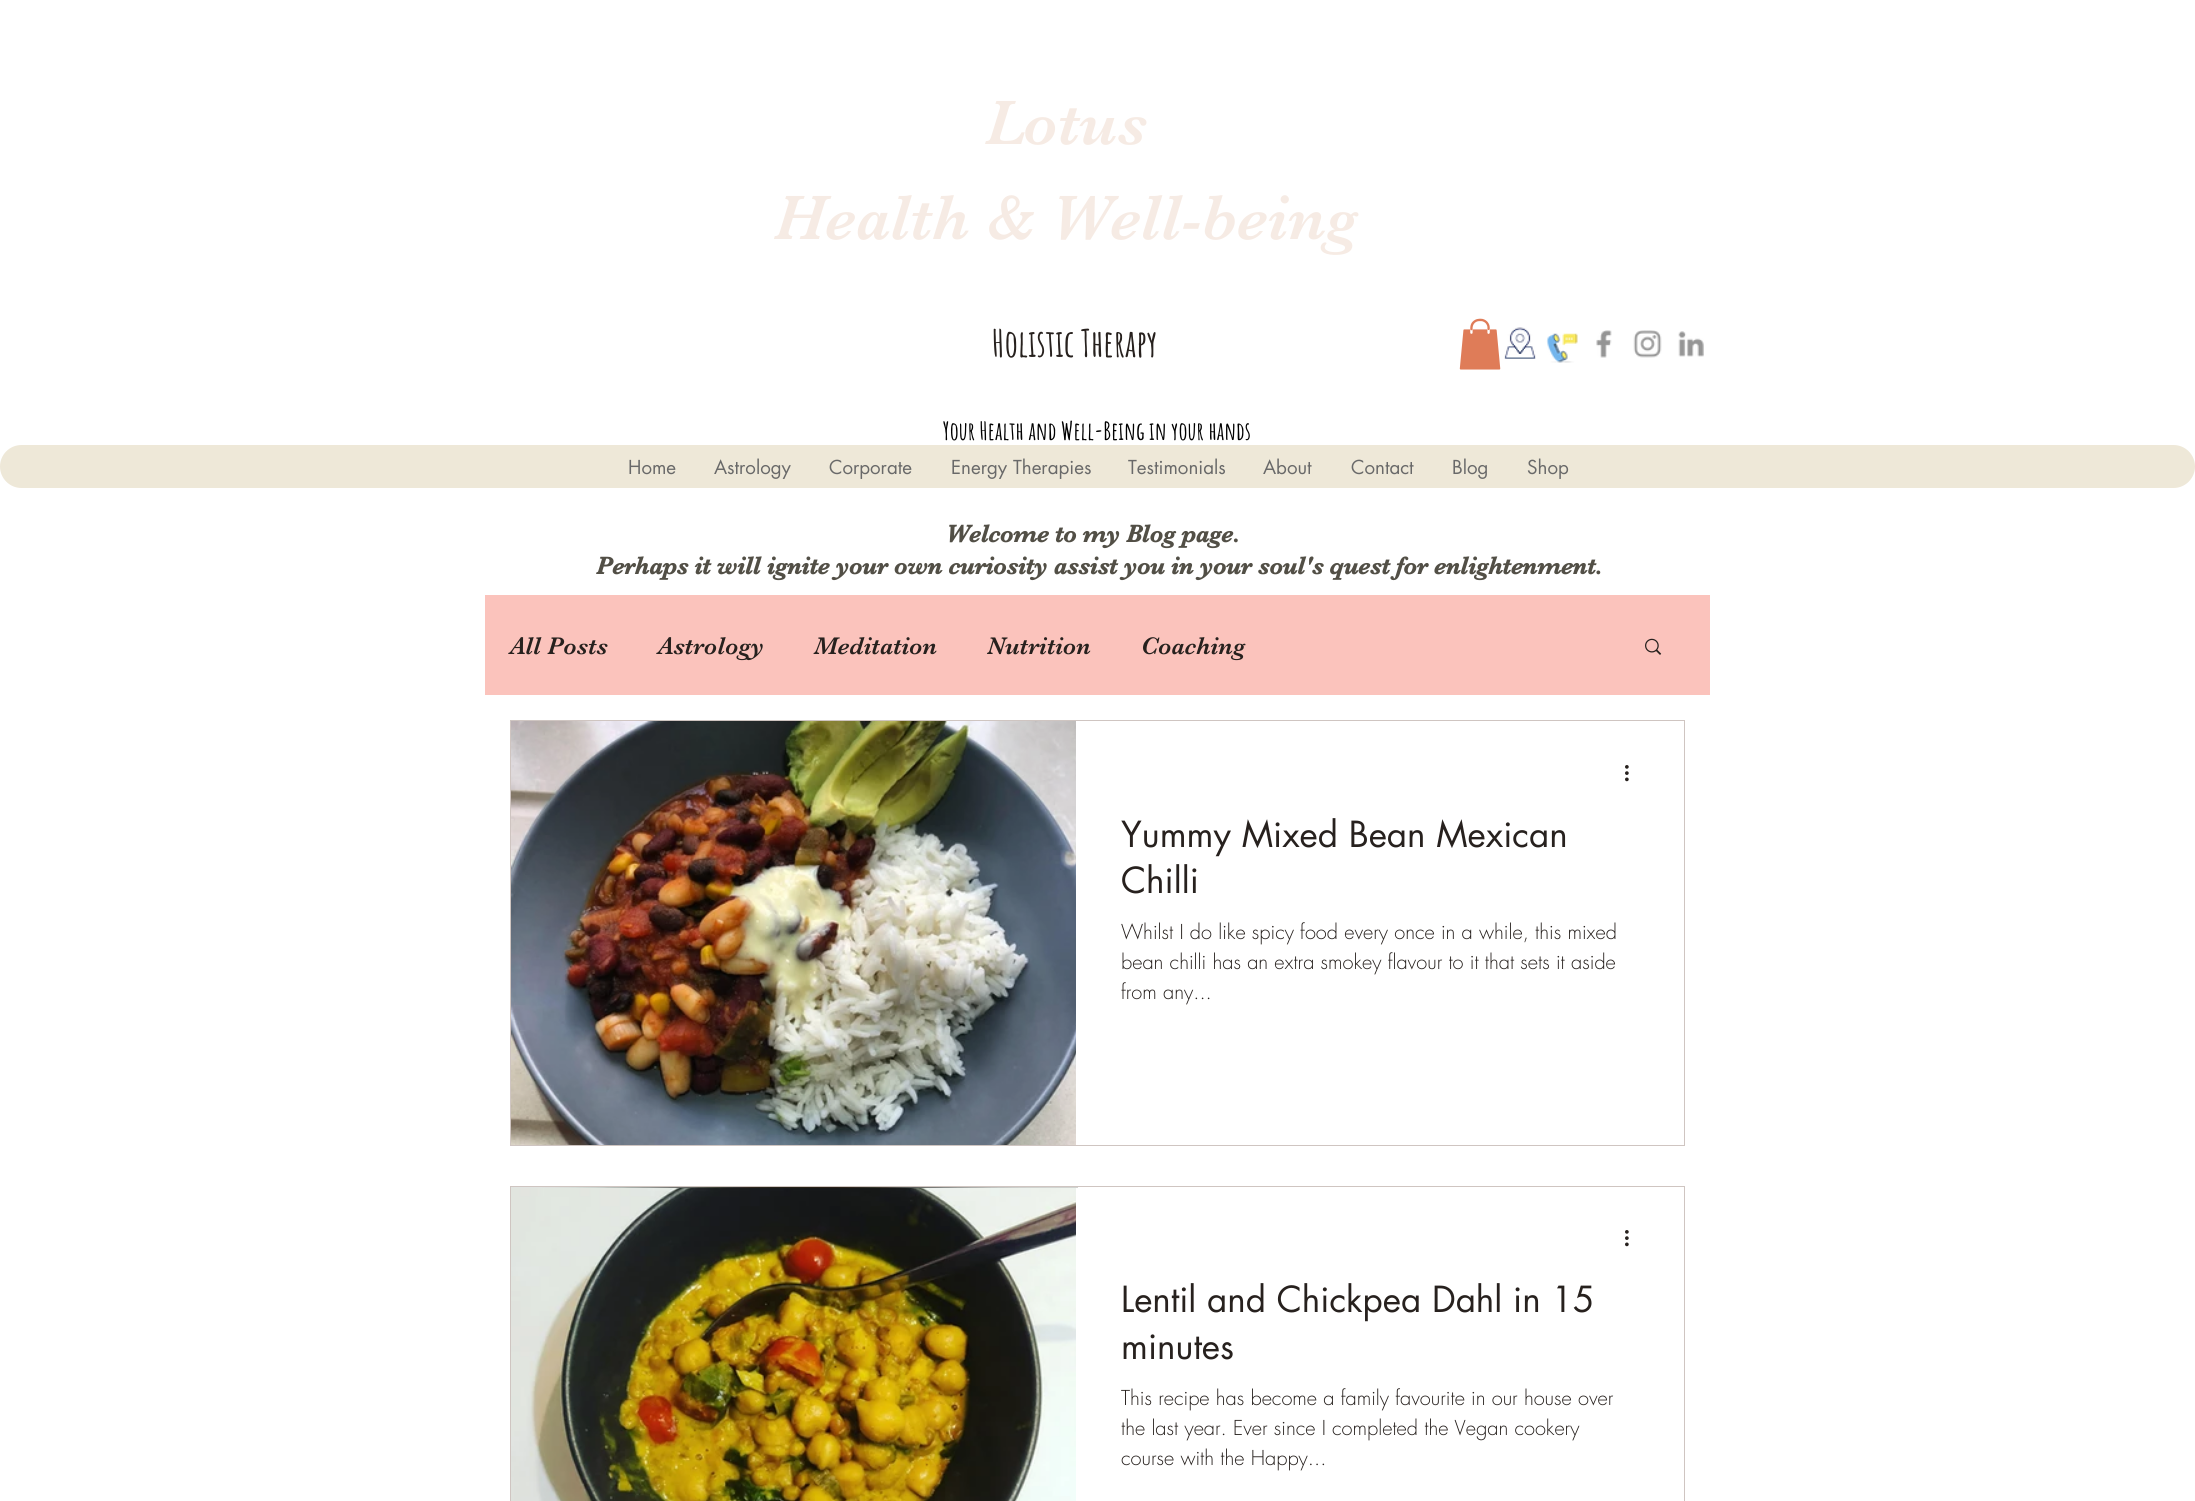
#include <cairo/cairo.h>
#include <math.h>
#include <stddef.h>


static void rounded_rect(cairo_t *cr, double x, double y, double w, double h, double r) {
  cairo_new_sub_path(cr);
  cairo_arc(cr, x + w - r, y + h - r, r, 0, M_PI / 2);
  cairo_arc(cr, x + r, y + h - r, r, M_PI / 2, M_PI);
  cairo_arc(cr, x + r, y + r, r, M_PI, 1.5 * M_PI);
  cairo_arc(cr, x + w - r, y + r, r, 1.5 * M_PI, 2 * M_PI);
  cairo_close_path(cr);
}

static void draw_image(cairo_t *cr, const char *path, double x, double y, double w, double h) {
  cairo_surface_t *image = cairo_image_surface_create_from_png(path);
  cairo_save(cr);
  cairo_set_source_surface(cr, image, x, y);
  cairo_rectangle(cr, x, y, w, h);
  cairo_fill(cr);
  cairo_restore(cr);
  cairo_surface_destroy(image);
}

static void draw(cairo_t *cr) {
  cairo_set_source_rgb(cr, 1, 1, 1);
  cairo_paint(cr);
  draw_image(cr, "images/1.png", 1459, 318, 42, 52);
  draw_image(cr, "images/2.png", 1504, 327, 32, 32);
  draw_image(cr, "images/3.png", 1546, 333, 32, 30);
  draw_image(cr, "images/4.png", 1596, 330, 16, 28);
  draw_image(cr, "images/5.png", 1633, 330, 29, 28);
  draw_image(cr, "images/6.png", 1678, 331, 26, 26);
  cairo_set_source_rgb(cr, 238 / 255.0, 232 / 255.0, 216 / 255.0);
  rounded_rect(cr, 0, 445, 2195, 43, 21.5);
  cairo_fill(cr);
  cairo_set_source_rgb(cr, 251 / 255.0, 195 / 255.0, 188 / 255.0);
  cairo_rectangle(cr, 485, 595, 1225, 100);
  cairo_fill(cr);
  draw_image(cr, "images/7.png", 1645, 638, 17, 17);
  cairo_rectangle(cr, 510.5, 720.5, 1174, 425);
  cairo_set_source_rgb(cr, 207 / 255.0, 197 / 255.0, 193 / 255.0);
  cairo_set_line_width(cr, 1);
  cairo_stroke(cr);
  draw_image(cr, "images/8.png", 511, 721, 565, 424);
  draw_image(cr, "images/9.png", 1625, 765, 4, 17);
  cairo_rectangle(cr, 510.5, 1186.5, 1174, 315);
  cairo_stroke(cr);
  draw_image(cr, "images/10.png", 511, 1187, 567, 1);
  draw_image(cr, "images/11.png", 511, 1188, 565, 313);
  draw_image(cr, "images/9.png", 1625, 1230, 4, 17);
  cairo_select_font_face(cr, "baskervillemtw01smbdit", CAIRO_FONT_SLANT_NORMAL, CAIRO_FONT_WEIGHT_NORMAL);
  cairo_set_font_size(cr, 65);
  cairo_set_source_rgb(cr, 246 / 255.0, 235 / 255.0, 228 / 255.0);
  cairo_move_to(cr, 985, 144);
  cairo_show_text(cr, "Lotus");
  cairo_move_to(cr, 774, 239);
  cairo_show_text(cr, "Health & Well-being");
  cairo_select_font_face(cr, "Amatic SC", CAIRO_FONT_SLANT_NORMAL, CAIRO_FONT_WEIGHT_BOLD);
  cairo_set_font_size(cr, 37.5);
  cairo_set_source_rgb(cr, 39 / 255.0, 33 / 255.0, 30 / 255.0);
  cairo_move_to(cr, 992, 357);
  cairo_show_text(cr, "Holistic Therapy");
  cairo_set_font_size(cr, 25);
  cairo_set_source_rgb(cr, 0, 0, 0);
  cairo_move_to(cr, 943, 440);
  cairo_show_text(cr, "Your Health and Well-Being in your hands");
  cairo_select_font_face(cr, "futura", CAIRO_FONT_SLANT_NORMAL, CAIRO_FONT_WEIGHT_NORMAL);
  cairo_set_font_size(cr, 18.75);
  cairo_set_source_rgb(cr, 105 / 255.0, 105 / 255.0, 105 / 255.0);
  cairo_move_to(cr, 628, 474);
  cairo_show_text(cr, "Home");
  cairo_move_to(cr, 714, 474);
  cairo_show_text(cr, "Astrology");
  cairo_move_to(cr, 829, 474);
  cairo_show_text(cr, "Corporate");
  cairo_move_to(cr, 951, 474);
  cairo_show_text(cr, "Energy Therapies");
  cairo_move_to(cr, 1128, 474);
  cairo_show_text(cr, "Testimonials");
  cairo_move_to(cr, 1263, 474);
  cairo_show_text(cr, "About");
  cairo_move_to(cr, 1351, 474);
  cairo_show_text(cr, "Contact");
  cairo_move_to(cr, 1452, 474);
  cairo_show_text(cr, "Blog");
  cairo_move_to(cr, 1527, 474);
  cairo_show_text(cr, "Shop");
  cairo_select_font_face(cr, "baskervillemtw01smbdit", CAIRO_FONT_SLANT_NORMAL, CAIRO_FONT_WEIGHT_BOLD);
  cairo_set_font_size(cr, 25);
  cairo_set_source_rgb(cr, 82 / 255.0, 79 / 255.0, 70 / 255.0);
  cairo_move_to(cr, 946, 542);
  cairo_show_text(cr, "Welcome to my Blog page.");
  cairo_move_to(cr, 596, 574);
  cairo_show_text(cr, "Perhaps it will ignite your own curiosity assist you in your soul's quest for enlightenment.");
  cairo_select_font_face(cr, "baskervillemtw01smbdit", CAIRO_FONT_SLANT_NORMAL, CAIRO_FONT_WEIGHT_NORMAL);
  cairo_set_source_rgb(cr, 39 / 255.0, 33 / 255.0, 30 / 255.0);
  cairo_move_to(cr, 510, 654);
  cairo_show_text(cr, "All Posts");
  cairo_move_to(cr, 658, 654);
  cairo_show_text(cr, "Astrology");
  cairo_move_to(cr, 814, 654);
  cairo_show_text(cr, "Meditation");
  cairo_move_to(cr, 987, 654);
  cairo_show_text(cr, "Nutrition");
  cairo_move_to(cr, 1141, 654);
  cairo_show_text(cr, "Coaching");
  cairo_select_font_face(cr, "futura", CAIRO_FONT_SLANT_NORMAL, CAIRO_FONT_WEIGHT_NORMAL);
  cairo_set_font_size(cr, 35);
  cairo_move_to(cr, 1121, 847);
  cairo_show_text(cr, "Yummy Mixed Bean Mexican");
  cairo_move_to(cr, 1121, 893);
  cairo_show_text(cr, "Chilli");
  cairo_select_font_face(cr, "futura Light", CAIRO_FONT_SLANT_NORMAL, CAIRO_FONT_WEIGHT_NORMAL);
  cairo_set_font_size(cr, 20);
  cairo_move_to(cr, 1121, 939);
  cairo_show_text(cr, "Whilst I do like spicy food every once in a while, this mixed");
  cairo_move_to(cr, 1121, 969);
  cairo_show_text(cr, "bean chilli has an extra smokey flavour to it that sets it aside");
  cairo_move_to(cr, 1121, 999);
  cairo_show_text(cr, "from any...");
  cairo_select_font_face(cr, "futura", CAIRO_FONT_SLANT_NORMAL, CAIRO_FONT_WEIGHT_NORMAL);
  cairo_set_font_size(cr, 35);
  cairo_move_to(cr, 1121, 1312);
  cairo_show_text(cr, "Lentil and Chickpea Dahl in 15");
  cairo_move_to(cr, 1121, 1359);
  cairo_show_text(cr, "minutes");
  cairo_select_font_face(cr, "futura Light", CAIRO_FONT_SLANT_NORMAL, CAIRO_FONT_WEIGHT_NORMAL);
  cairo_set_font_size(cr, 20);
  cairo_move_to(cr, 1121, 1405);
  cairo_show_text(cr, "This recipe has become a family favourite in our house over");
  cairo_move_to(cr, 1121, 1435);
  cairo_show_text(cr, "the last year. Ever since I completed the Vegan cookery");
  cairo_move_to(cr, 1121, 1465);
  cairo_show_text(cr, "course with the Happy...");
}

int main(void) {
  cairo_surface_t *surface = cairo_image_surface_create(CAIRO_FORMAT_RGB24, 2195, 1501);
  cairo_t *cr = cairo_create(surface);
  cairo_font_options_t *options = cairo_font_options_create();
  cairo_font_options_set_hint_metrics(options, CAIRO_HINT_METRICS_OFF);
  cairo_font_options_set_hint_style(options, CAIRO_HINT_STYLE_NONE);
  cairo_set_font_options(cr, options);
  cairo_set_miter_limit(cr, 4);
  draw(cr);
  cairo_surface_write_to_png(surface, "out.png");
  cairo_font_options_destroy(options);
  cairo_destroy(cr);
  cairo_surface_destroy(surface);
  return 0;
}
